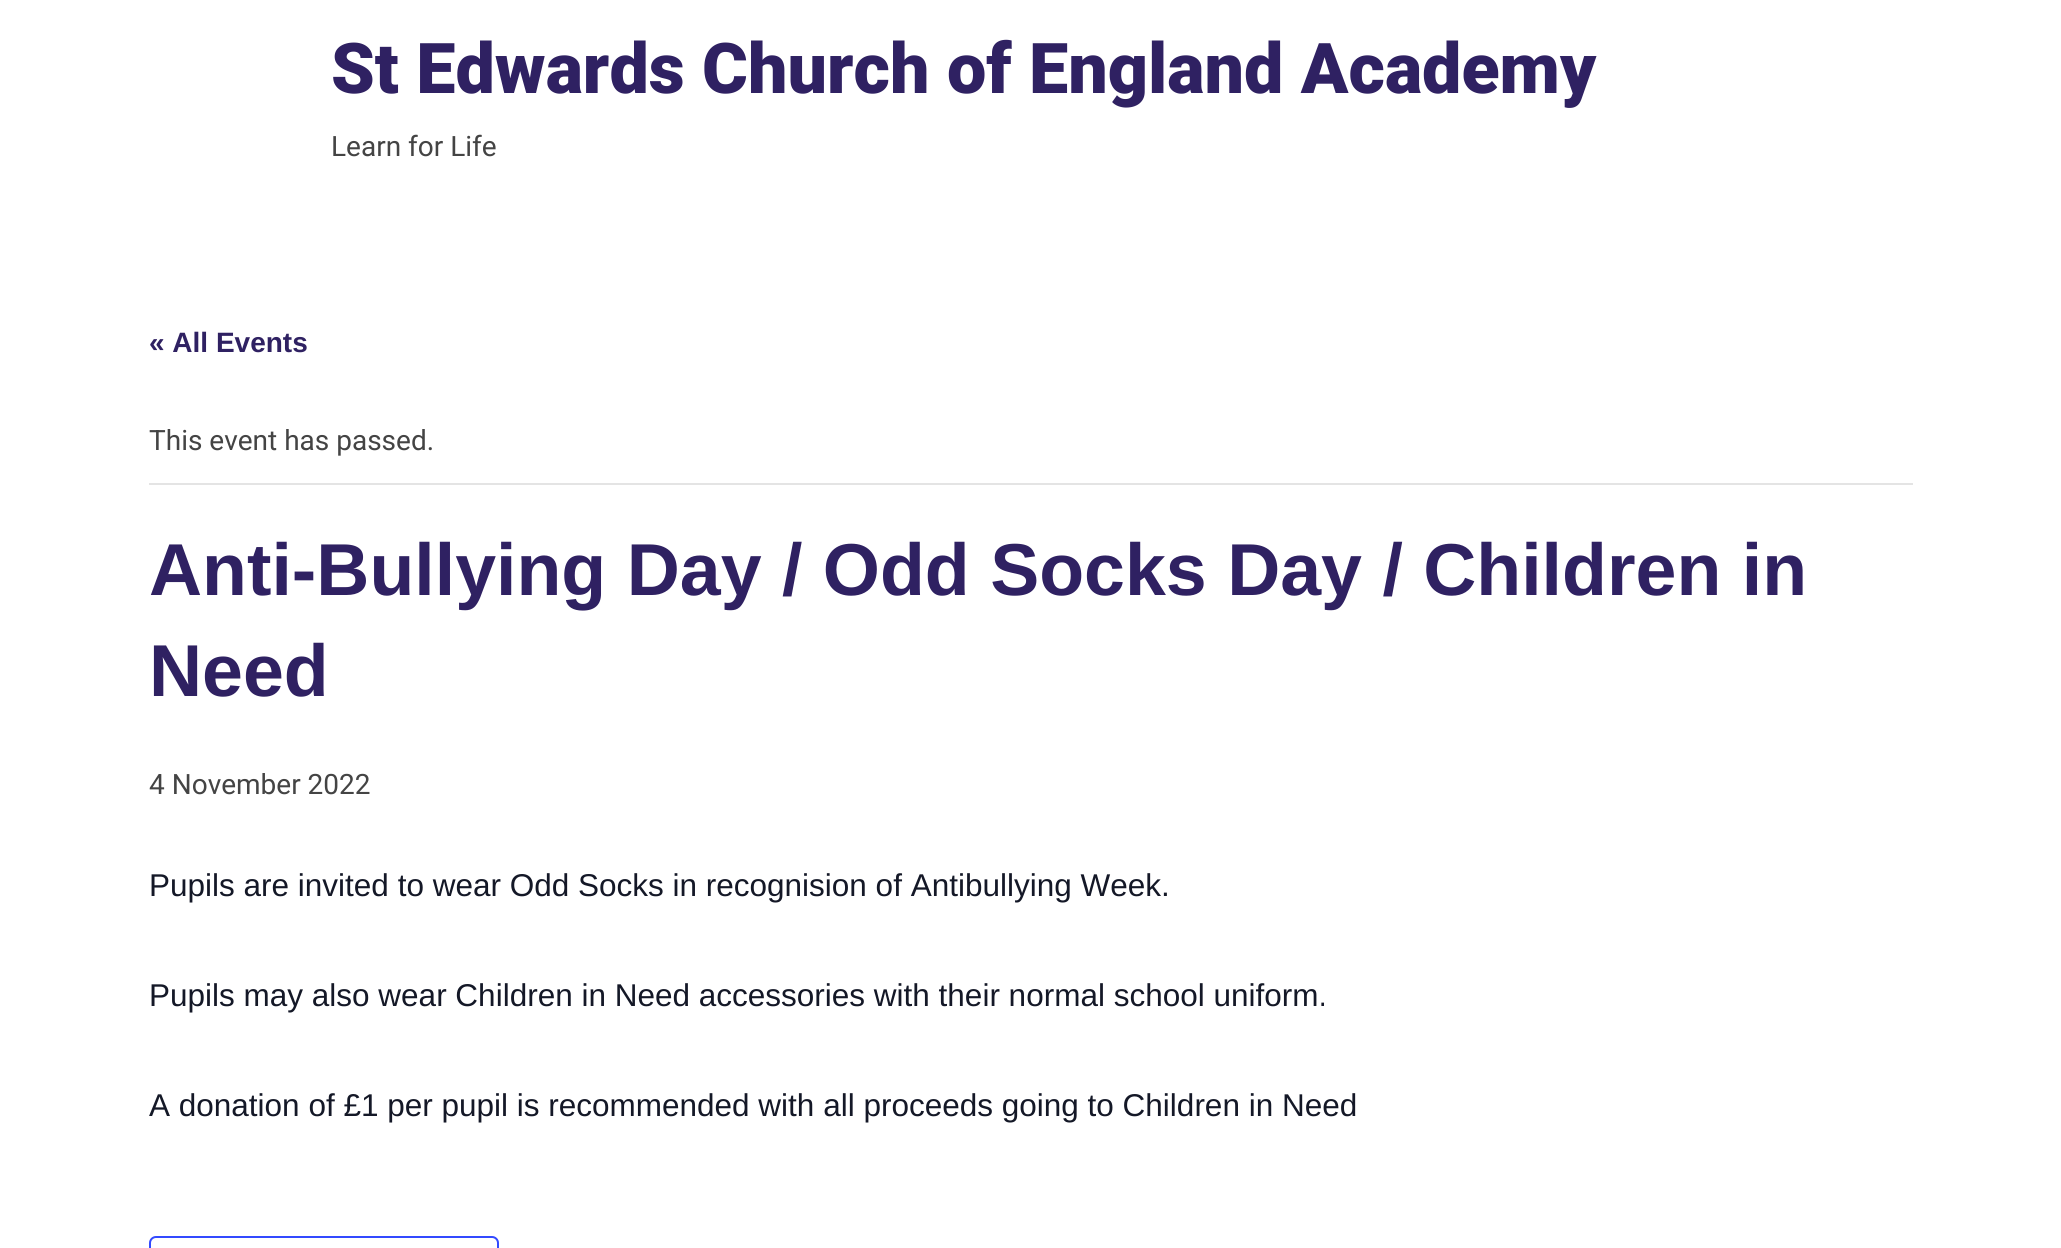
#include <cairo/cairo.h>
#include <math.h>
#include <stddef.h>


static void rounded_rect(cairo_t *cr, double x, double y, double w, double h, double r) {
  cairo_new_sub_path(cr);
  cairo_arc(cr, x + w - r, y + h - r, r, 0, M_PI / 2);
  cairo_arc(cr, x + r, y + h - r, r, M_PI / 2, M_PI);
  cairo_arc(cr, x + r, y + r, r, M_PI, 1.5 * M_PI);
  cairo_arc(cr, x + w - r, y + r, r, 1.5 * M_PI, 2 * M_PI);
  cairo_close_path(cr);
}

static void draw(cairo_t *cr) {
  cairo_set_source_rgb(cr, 1, 1, 1);
  cairo_paint(cr);
  cairo_set_source_rgb(cr, 228 / 255.0, 228 / 255.0, 228 / 255.0);
  cairo_rectangle(cr, 149, 483, 1764, 2);
  cairo_fill(cr);
  rounded_rect(cr, 150, 1237, 348, 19, 6);
  cairo_set_source_rgb(cr, 51 / 255.0, 74 / 255.0, 1);
  cairo_stroke(cr);
  cairo_select_font_face(cr, "Roboto Black", CAIRO_FONT_SLANT_NORMAL, CAIRO_FONT_WEIGHT_NORMAL);
  cairo_set_font_size(cr, 70);
  cairo_set_source_rgb(cr, 47 / 255.0, 33 / 255.0, 98 / 255.0);
  cairo_move_to(cr, 331, 93);
  cairo_show_text(cr, "St Edwards Church of England Academy");
  cairo_select_font_face(cr, "Roboto", CAIRO_FONT_SLANT_NORMAL, CAIRO_FONT_WEIGHT_NORMAL);
  cairo_set_font_size(cr, 28);
  cairo_set_source_rgb(cr, 68 / 255.0, 68 / 255.0, 68 / 255.0);
  cairo_move_to(cr, 331, 156);
  cairo_show_text(cr, "Learn for Life");
  cairo_select_font_face(cr, "Liberation Sans", CAIRO_FONT_SLANT_NORMAL, CAIRO_FONT_WEIGHT_BOLD);
  cairo_set_source_rgb(cr, 47 / 255.0, 33 / 255.0, 98 / 255.0);
  cairo_move_to(cr, 149, 352);
  cairo_show_text(cr, "« All Events");
  cairo_select_font_face(cr, "Roboto", CAIRO_FONT_SLANT_NORMAL, CAIRO_FONT_WEIGHT_NORMAL);
  cairo_set_source_rgb(cr, 68 / 255.0, 68 / 255.0, 68 / 255.0);
  cairo_move_to(cr, 149, 450);
  cairo_show_text(cr, "This event has passed.");
  cairo_select_font_face(cr, "Liberation Sans", CAIRO_FONT_SLANT_NORMAL, CAIRO_FONT_WEIGHT_BOLD);
  cairo_set_font_size(cr, 73.5);
  cairo_set_source_rgb(cr, 47 / 255.0, 33 / 255.0, 98 / 255.0);
  cairo_move_to(cr, 149, 595);
  cairo_show_text(cr, "Anti-Bullying Day / Odd Socks Day / Children in");
  cairo_move_to(cr, 149, 696);
  cairo_show_text(cr, "Need");
  cairo_select_font_face(cr, "Roboto", CAIRO_FONT_SLANT_NORMAL, CAIRO_FONT_WEIGHT_NORMAL);
  cairo_set_font_size(cr, 28);
  cairo_set_source_rgb(cr, 68 / 255.0, 68 / 255.0, 68 / 255.0);
  cairo_move_to(cr, 149, 794);
  cairo_show_text(cr, "4 November 2022");
  cairo_select_font_face(cr, "Liberation Sans", CAIRO_FONT_SLANT_NORMAL, CAIRO_FONT_WEIGHT_NORMAL);
  cairo_set_font_size(cr, 31.5);
  cairo_set_source_rgb(cr, 20 / 255.0, 24 / 255.0, 39 / 255.0);
  cairo_move_to(cr, 149, 896);
  cairo_show_text(cr, "Pupils are invited to wear Odd Socks in recognision of Antibullying Week.");
  cairo_move_to(cr, 149, 1006);
  cairo_show_text(cr, "Pupils may also wear Children in Need accessories with their normal school uniform.");
  cairo_move_to(cr, 149, 1116);
  cairo_show_text(cr, "A donation of £1 per pupil is recommended with all proceeds going to Children in Need");
}

int main(void) {
  cairo_surface_t *surface = cairo_image_surface_create(CAIRO_FORMAT_RGB24, 2061, 1248);
  cairo_t *cr = cairo_create(surface);
  cairo_font_options_t *options = cairo_font_options_create();
  cairo_font_options_set_hint_metrics(options, CAIRO_HINT_METRICS_OFF);
  cairo_font_options_set_hint_style(options, CAIRO_HINT_STYLE_NONE);
  cairo_set_font_options(cr, options);
  cairo_set_miter_limit(cr, 4);
  draw(cr);
  cairo_surface_write_to_png(surface, "out.png");
  cairo_font_options_destroy(options);
  cairo_destroy(cr);
  cairo_surface_destroy(surface);
  return 0;
}
